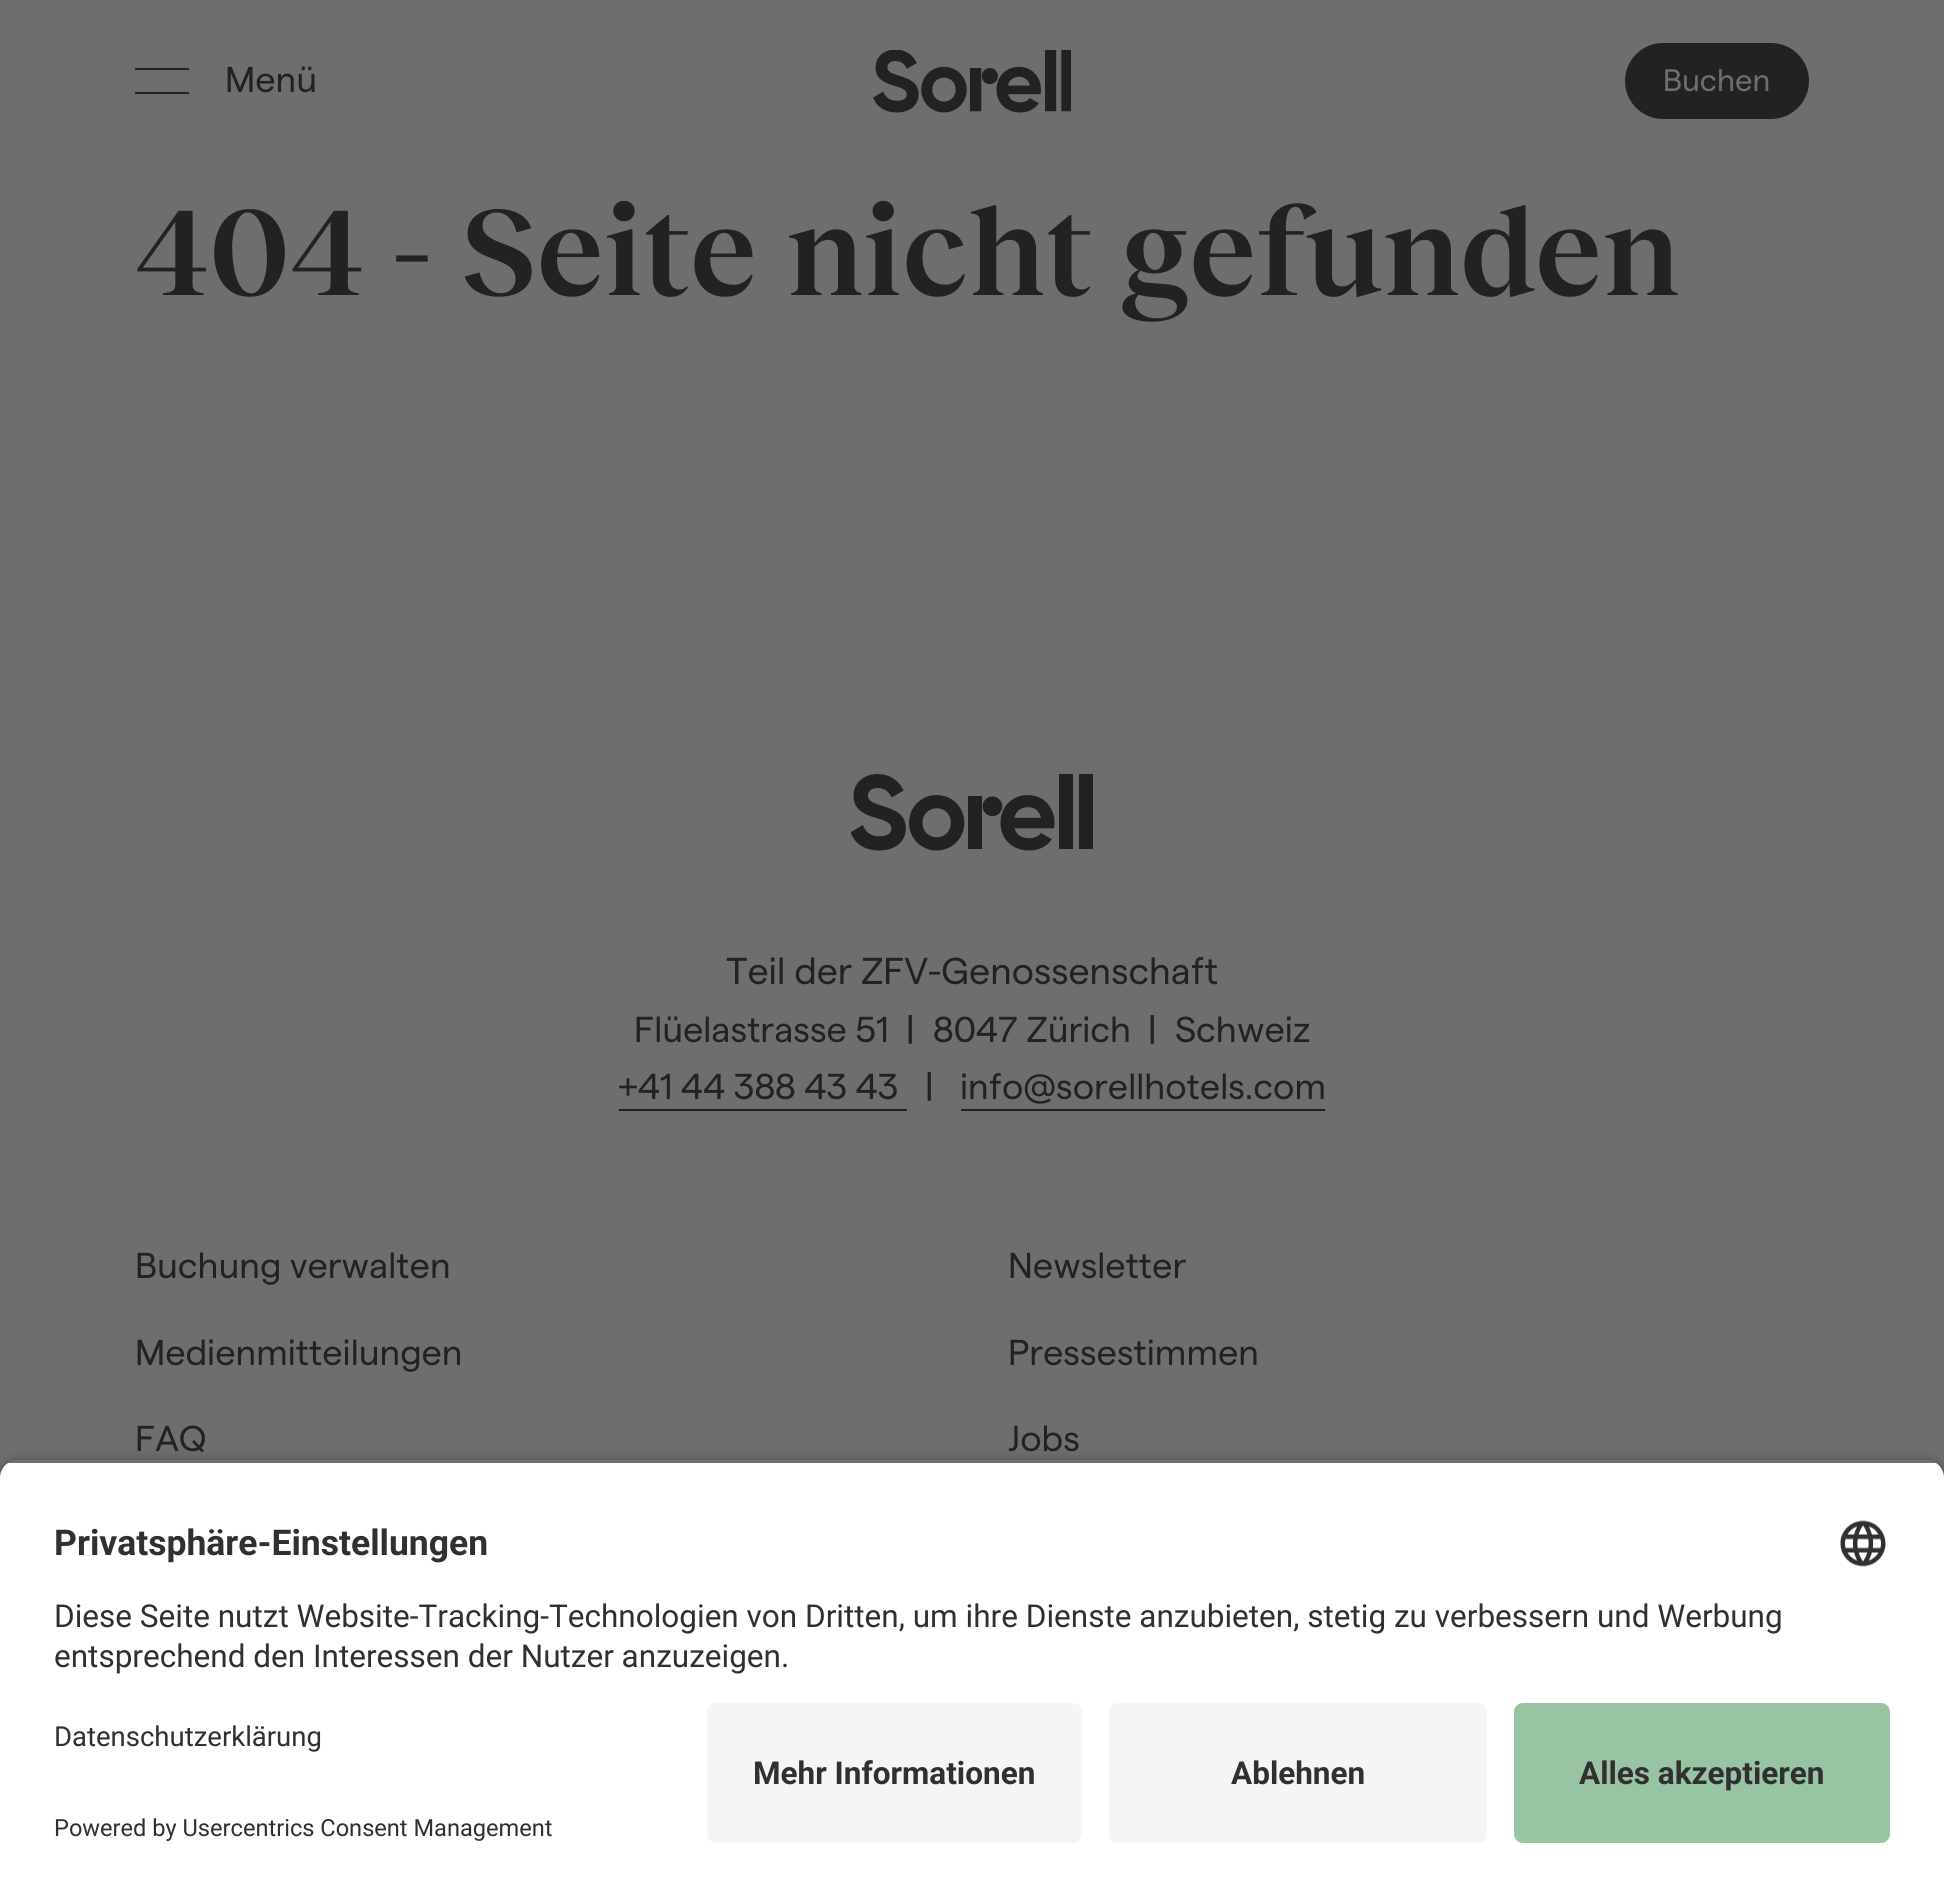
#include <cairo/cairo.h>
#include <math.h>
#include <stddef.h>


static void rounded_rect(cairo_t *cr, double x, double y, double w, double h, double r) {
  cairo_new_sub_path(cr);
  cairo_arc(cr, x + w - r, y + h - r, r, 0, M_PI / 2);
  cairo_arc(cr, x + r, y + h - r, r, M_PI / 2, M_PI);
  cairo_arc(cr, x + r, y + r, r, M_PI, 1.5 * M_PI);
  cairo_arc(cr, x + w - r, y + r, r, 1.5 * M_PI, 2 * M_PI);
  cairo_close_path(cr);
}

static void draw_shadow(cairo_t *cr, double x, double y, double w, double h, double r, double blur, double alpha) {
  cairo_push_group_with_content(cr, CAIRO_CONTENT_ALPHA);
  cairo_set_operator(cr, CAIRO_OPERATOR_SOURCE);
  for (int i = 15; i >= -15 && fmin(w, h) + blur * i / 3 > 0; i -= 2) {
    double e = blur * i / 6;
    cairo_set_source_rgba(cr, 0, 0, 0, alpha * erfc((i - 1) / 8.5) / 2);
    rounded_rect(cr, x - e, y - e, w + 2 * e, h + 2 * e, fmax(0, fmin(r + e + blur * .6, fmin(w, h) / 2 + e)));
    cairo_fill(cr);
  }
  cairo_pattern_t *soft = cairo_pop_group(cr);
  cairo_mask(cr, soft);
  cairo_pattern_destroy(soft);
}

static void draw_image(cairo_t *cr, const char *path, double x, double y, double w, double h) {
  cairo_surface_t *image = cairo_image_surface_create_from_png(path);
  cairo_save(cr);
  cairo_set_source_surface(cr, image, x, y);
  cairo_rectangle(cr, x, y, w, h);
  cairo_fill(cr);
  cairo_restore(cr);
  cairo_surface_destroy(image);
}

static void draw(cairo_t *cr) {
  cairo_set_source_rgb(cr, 110 / 255.0, 110 / 255.0, 110 / 255.0);
  cairo_paint(cr);
  cairo_set_source_rgb(cr, 34 / 255.0, 34 / 255.0, 34 / 255.0);
  cairo_rectangle(cr, 135, 68, 54, 2);
  cairo_fill(cr);
  cairo_rectangle(cr, 135, 92, 54, 2);
  cairo_fill(cr);
  draw_image(cr, "images/1.png", 873, 50, 198, 63);
  rounded_rect(cr, 1626, 44, 182, 74, 37);
  cairo_fill_preserve(cr);
  cairo_stroke(cr);
  draw_image(cr, "images/2.png", 851, 774, 242, 77);
  cairo_rectangle(cr, 619, 1109, 288, 2);
  cairo_fill(cr);
  cairo_rectangle(cr, 961, 1109, 364, 2);
  cairo_fill(cr);
  cairo_save(cr);
  cairo_set_fill_rule(cr, CAIRO_FILL_RULE_EVEN_ODD);
  cairo_new_path(cr);
  cairo_move_to(cr, 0, 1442);
  cairo_line_to(cr, 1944, 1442);
  cairo_line_to(cr, 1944, 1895);
  cairo_line_to(cr, 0, 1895);
  cairo_close_path(cr);
  cairo_move_to(cr, 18, 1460);
  cairo_line_to(cr, 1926, 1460);
  cairo_curve_to(cr, 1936, 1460, 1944, 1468, 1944, 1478);
  cairo_line_to(cr, 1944, 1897);
  cairo_line_to(cr, 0, 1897);
  cairo_line_to(cr, 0, 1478);
  cairo_curve_to(cr, 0, 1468, 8, 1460, 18, 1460);
  cairo_close_path(cr);
  cairo_clip(cr);
  cairo_set_source_rgb(cr, 0, 0, 0);
  draw_shadow(cr, 0, 1467, 1944, 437, 18, 8, 0.8);
  cairo_restore(cr);
  cairo_save(cr);
  cairo_new_path(cr);
  cairo_move_to(cr, 18, 1460);
  cairo_line_to(cr, 1926, 1460);
  cairo_curve_to(cr, 1936, 1460, 1944, 1468, 1944, 1478);
  cairo_line_to(cr, 1944, 1685);
  cairo_line_to(cr, 0, 1685);
  cairo_line_to(cr, 0, 1478);
  cairo_curve_to(cr, 0, 1468, 8, 1460, 18, 1460);
  cairo_close_path(cr);
  cairo_clip(cr);
  cairo_set_source_rgb(cr, 1, 1, 1);
  cairo_rectangle(cr, 0, 1463, 1944, 222);
  cairo_fill(cr);
  cairo_restore(cr);
  draw_image(cr, "images/3.png", 1840, 1520, 46, 47);
  cairo_set_source_rgb(cr, 1, 1, 1);
  cairo_rectangle(cr, 0, 1685, 1944, 210);
  cairo_fill(cr);
  cairo_set_source_rgb(cr, 245 / 255.0, 245 / 255.0, 245 / 255.0);
  rounded_rect(cr, 707, 1703, 375, 140, 9);
  cairo_fill(cr);
  rounded_rect(cr, 1109, 1703, 378, 140, 9);
  cairo_fill(cr);
  cairo_set_source_rgb(cr, 152 / 255.0, 196 / 255.0, 163 / 255.0);
  rounded_rect(cr, 1514, 1703, 376, 140, 9);
  cairo_fill(cr);
  cairo_select_font_face(cr, "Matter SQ", CAIRO_FONT_SLANT_NORMAL, CAIRO_FONT_WEIGHT_NORMAL);
  cairo_set_font_size(cr, 36);
  cairo_set_source_rgb(cr, 34 / 255.0, 34 / 255.0, 34 / 255.0);
  cairo_move_to(cr, 225, 92);
  cairo_show_text(cr, "Menü");
  cairo_set_font_size(cr, 31);
  cairo_set_source_rgb(cr, 110 / 255.0, 110 / 255.0, 110 / 255.0);
  cairo_move_to(cr, 1663, 91);
  cairo_show_text(cr, "Buchen");
  cairo_select_font_face(cr, "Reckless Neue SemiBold", CAIRO_FONT_SLANT_NORMAL, CAIRO_FONT_WEIGHT_NORMAL);
  cairo_set_font_size(cr, 126);
  cairo_set_source_rgb(cr, 34 / 255.0, 34 / 255.0, 34 / 255.0);
  cairo_move_to(cr, 135, 295);
  cairo_show_text(cr, "404 - Seite nicht gefunden");
  cairo_select_font_face(cr, "Matter SQ", CAIRO_FONT_SLANT_NORMAL, CAIRO_FONT_WEIGHT_NORMAL);
  cairo_set_font_size(cr, 37.4);
  cairo_move_to(cr, 726, 984);
  cairo_show_text(cr, "Teil der ZFV-Genossenschaft");
  cairo_set_font_size(cr, 36);
  cairo_move_to(cr, 634, 1042);
  cairo_show_text(cr, "Flüelastrasse 51");
  cairo_move_to(cr, 906, 1042);
  cairo_show_text(cr, "|");
  cairo_move_to(cr, 933, 1042);
  cairo_show_text(cr, "8047 Zürich");
  cairo_move_to(cr, 1148, 1042);
  cairo_show_text(cr, "|");
  cairo_move_to(cr, 1175, 1042);
  cairo_show_text(cr, "Schweiz");
  cairo_move_to(cr, 618, 1099);
  cairo_show_text(cr, "+41 44 388 43 43");
  cairo_move_to(cr, 925, 1099);
  cairo_show_text(cr, "|");
  cairo_move_to(cr, 960, 1099);
  cairo_show_text(cr, "info@sorellhotels.com");
  cairo_move_to(cr, 135, 1278);
  cairo_show_text(cr, "Buchung verwalten");
  cairo_move_to(cr, 1008, 1278);
  cairo_show_text(cr, "Newsletter");
  cairo_move_to(cr, 135, 1365);
  cairo_show_text(cr, "Medienmitteilungen");
  cairo_move_to(cr, 1008, 1365);
  cairo_show_text(cr, "Pressestimmen");
  cairo_move_to(cr, 135, 1451);
  cairo_show_text(cr, "FAQ");
  cairo_move_to(cr, 1008, 1451);
  cairo_show_text(cr, "Jobs");
  cairo_select_font_face(cr, "Roboto", CAIRO_FONT_SLANT_NORMAL, CAIRO_FONT_WEIGHT_BOLD);
  cairo_set_font_size(cr, 35.5);
  cairo_set_source_rgb(cr, 48 / 255.0, 48 / 255.0, 48 / 255.0);
  cairo_move_to(cr, 54, 1555);
  cairo_show_text(cr, "Privatsphäre-Einstellungen");
  cairo_select_font_face(cr, "Roboto", CAIRO_FONT_SLANT_NORMAL, CAIRO_FONT_WEIGHT_NORMAL);
  cairo_set_font_size(cr, 31.5);
  cairo_move_to(cr, 54, 1627);
  cairo_show_text(cr, "Diese Seite nutzt Website-Tracking-Technologien von Dritten, um ihre Dienste anzubieten, stetig zu verbessern und Werbung");
  cairo_move_to(cr, 54, 1667);
  cairo_show_text(cr, "entsprechend den Interessen der Nutzer anzuzeigen.");
  cairo_set_font_size(cr, 27.5);
  cairo_move_to(cr, 54, 1746);
  cairo_show_text(cr, "Datenschutzerklärung");
  cairo_set_font_size(cr, 23.6);
  cairo_move_to(cr, 54, 1836);
  cairo_show_text(cr, "Powered by Usercentrics Consent Management");
  cairo_select_font_face(cr, "Roboto", CAIRO_FONT_SLANT_NORMAL, CAIRO_FONT_WEIGHT_BOLD);
  cairo_set_font_size(cr, 31.5);
  cairo_move_to(cr, 753, 1784);
  cairo_show_text(cr, "Mehr Informationen");
  cairo_move_to(cr, 1231, 1784);
  cairo_show_text(cr, "Ablehnen");
  cairo_move_to(cr, 1579, 1784);
  cairo_show_text(cr, "Alles akzeptieren");
}

int main(void) {
  cairo_surface_t *surface = cairo_image_surface_create(CAIRO_FORMAT_RGB24, 1944, 1895);
  cairo_t *cr = cairo_create(surface);
  cairo_font_options_t *options = cairo_font_options_create();
  cairo_font_options_set_hint_metrics(options, CAIRO_HINT_METRICS_OFF);
  cairo_font_options_set_hint_style(options, CAIRO_HINT_STYLE_NONE);
  cairo_set_font_options(cr, options);
  cairo_set_miter_limit(cr, 4);
  draw(cr);
  cairo_surface_write_to_png(surface, "out.png");
  cairo_font_options_destroy(options);
  cairo_destroy(cr);
  cairo_surface_destroy(surface);
  return 0;
}
